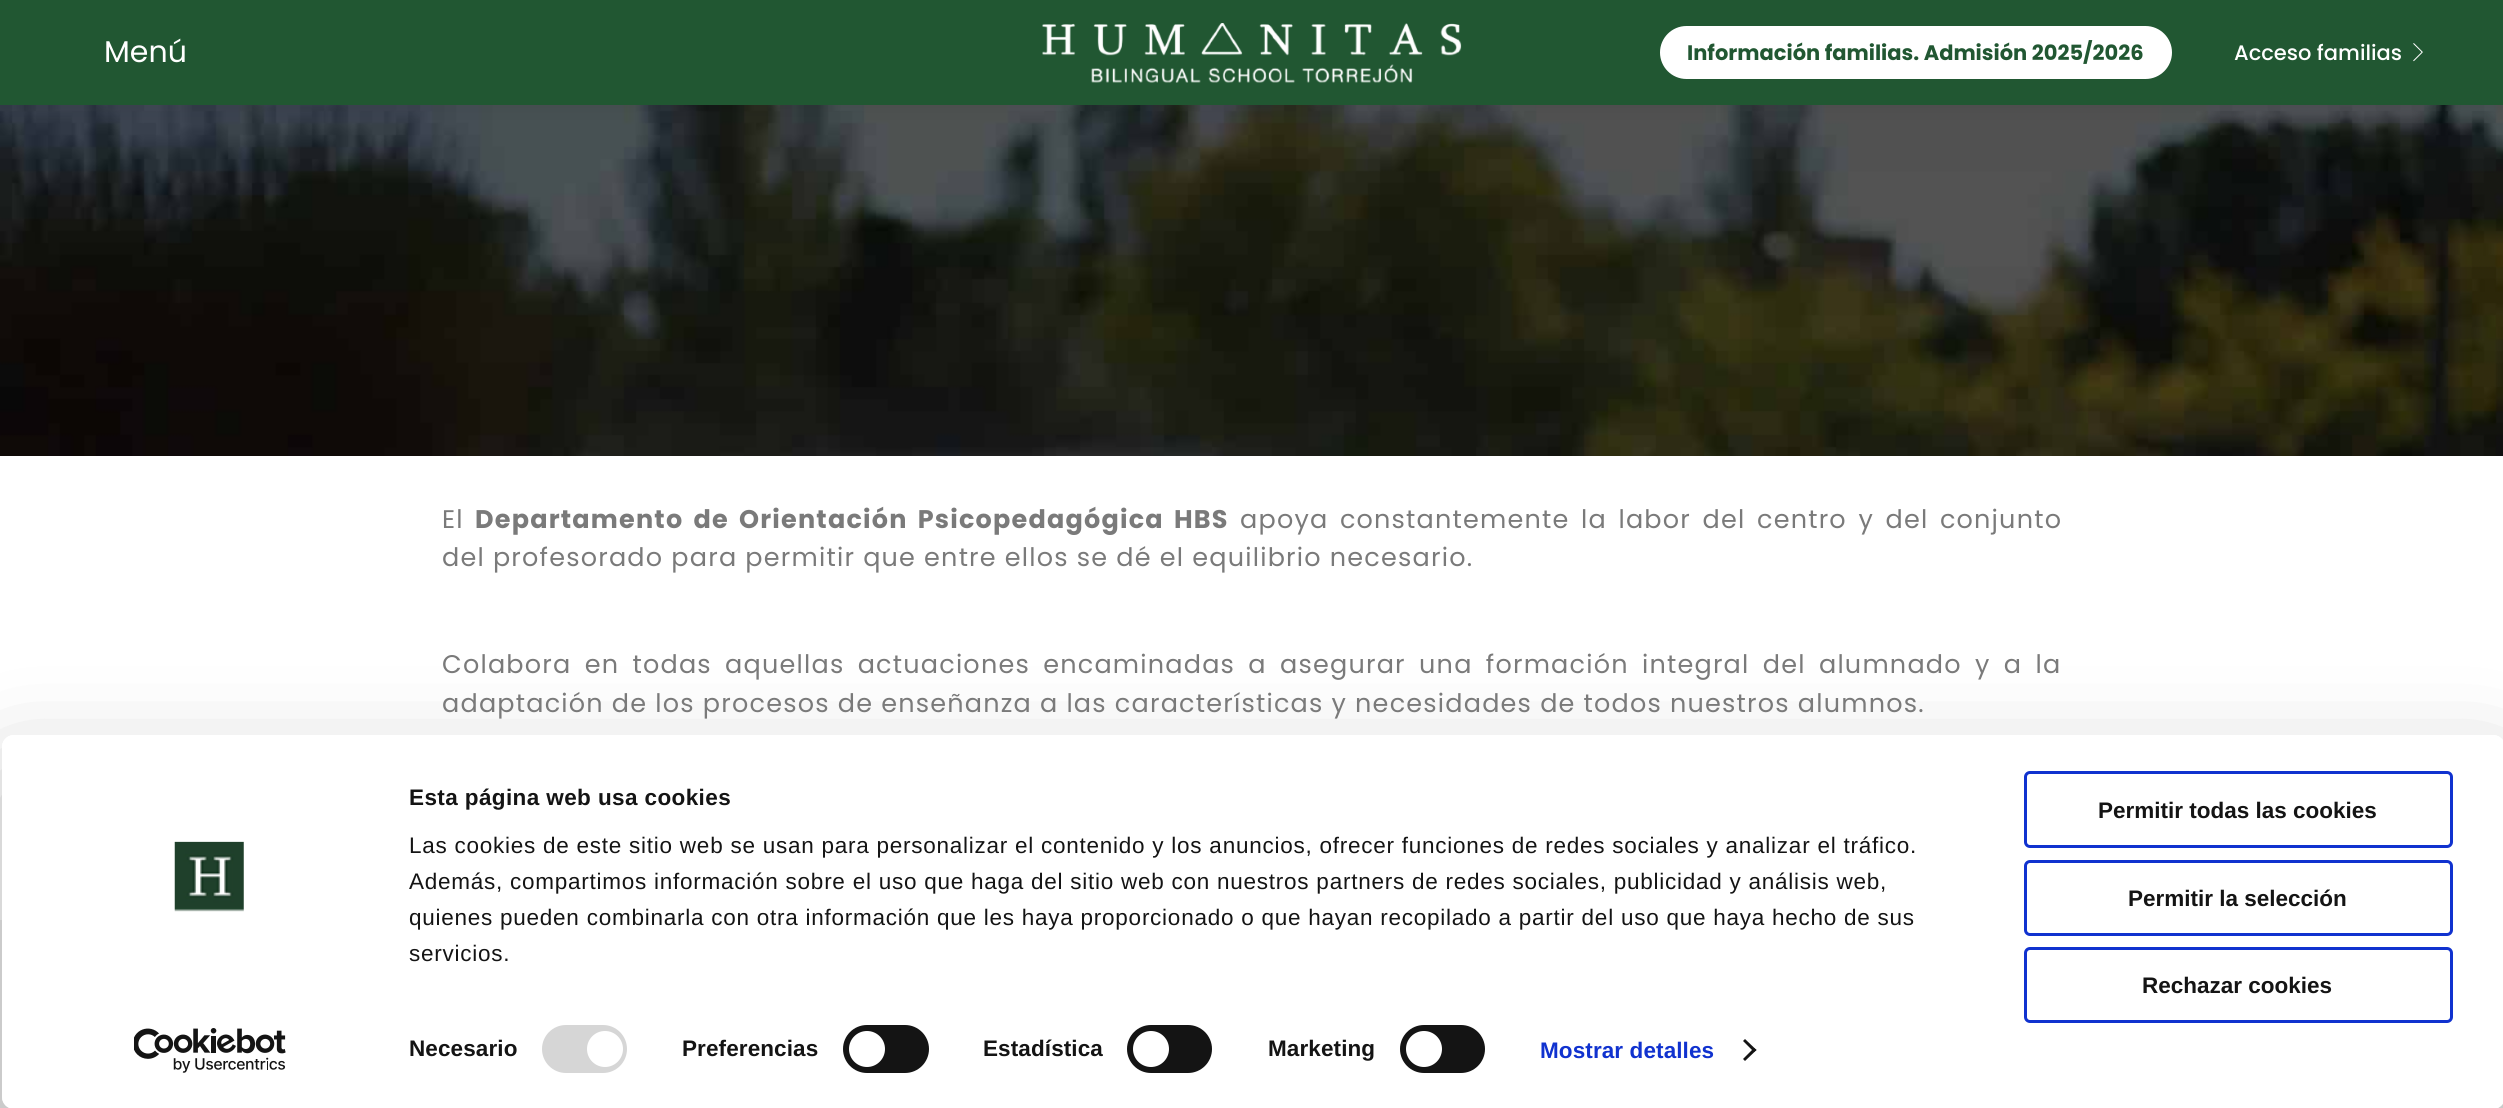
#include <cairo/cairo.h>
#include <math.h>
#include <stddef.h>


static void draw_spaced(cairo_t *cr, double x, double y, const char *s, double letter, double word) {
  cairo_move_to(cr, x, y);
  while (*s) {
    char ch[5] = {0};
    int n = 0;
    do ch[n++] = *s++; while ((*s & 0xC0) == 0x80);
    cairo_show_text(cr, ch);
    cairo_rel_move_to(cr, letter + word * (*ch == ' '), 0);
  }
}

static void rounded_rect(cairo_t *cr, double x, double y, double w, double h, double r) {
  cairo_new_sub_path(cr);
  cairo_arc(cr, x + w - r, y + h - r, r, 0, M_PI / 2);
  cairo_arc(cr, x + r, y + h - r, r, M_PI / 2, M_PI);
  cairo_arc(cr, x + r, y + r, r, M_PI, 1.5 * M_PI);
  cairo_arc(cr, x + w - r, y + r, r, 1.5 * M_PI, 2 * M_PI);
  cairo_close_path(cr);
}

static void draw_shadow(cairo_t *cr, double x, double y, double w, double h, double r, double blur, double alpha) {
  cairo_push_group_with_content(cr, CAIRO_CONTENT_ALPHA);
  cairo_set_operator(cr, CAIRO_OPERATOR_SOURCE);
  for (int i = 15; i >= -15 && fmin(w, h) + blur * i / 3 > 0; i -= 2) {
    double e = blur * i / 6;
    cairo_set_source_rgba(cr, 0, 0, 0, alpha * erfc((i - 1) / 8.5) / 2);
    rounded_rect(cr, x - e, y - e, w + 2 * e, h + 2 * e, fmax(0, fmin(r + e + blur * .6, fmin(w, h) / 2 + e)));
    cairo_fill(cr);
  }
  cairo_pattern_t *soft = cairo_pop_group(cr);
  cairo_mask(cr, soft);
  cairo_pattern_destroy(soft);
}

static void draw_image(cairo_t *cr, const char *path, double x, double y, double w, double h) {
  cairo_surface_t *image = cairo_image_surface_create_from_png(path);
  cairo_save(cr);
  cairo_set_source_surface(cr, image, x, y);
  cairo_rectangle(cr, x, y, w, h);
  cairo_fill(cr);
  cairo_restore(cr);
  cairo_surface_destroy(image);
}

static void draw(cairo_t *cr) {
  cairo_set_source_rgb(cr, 1, 1, 1);
  cairo_paint(cr);
  draw_image(cr, "images/3.png", 0, 105, 2503, 351);
  cairo_set_source_rgb(cr, 0, 0, 0);
  draw_shadow(cr, -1, -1, 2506, 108, 0, 11, 0.07);
  cairo_set_source_rgb(cr, 33 / 255.0, 87 / 255.0, 50 / 255.0);
  cairo_rectangle(cr, 0, 0, 2503, 105);
  cairo_fill(cr);
  draw_image(cr, "images/1.png", 1042, 23, 420, 60);
  cairo_set_source_rgb(cr, 1, 1, 1);
  rounded_rect(cr, 1659, 25, 514, 55, 27.5);
  cairo_fill_preserve(cr);
  cairo_set_source_rgb(cr, 33 / 255.0, 87 / 255.0, 50 / 255.0);
  cairo_stroke(cr);
  draw_image(cr, "images/2.png", 2413, 43, 10, 19);
  cairo_set_source_rgb(cr, 239 / 255.0, 239 / 255.0, 239 / 255.0);
  cairo_rectangle(cr, 0, 920, 2503, 188);
  cairo_fill(cr);
  cairo_save(cr);
  cairo_set_fill_rule(cr, CAIRO_FILL_RULE_EVEN_ODD);
  cairo_new_path(cr);
  cairo_move_to(cr, 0, 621);
  cairo_line_to(cr, 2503, 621);
  cairo_line_to(cr, 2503, 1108);
  cairo_line_to(cr, 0, 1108);
  cairo_close_path(cr);
  cairo_move_to(cr, 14, 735);
  cairo_line_to(cr, 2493, 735);
  cairo_curve_to(cr, 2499.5, 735, 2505, 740.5, 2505, 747);
  cairo_line_to(cr, 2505, 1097);
  cairo_curve_to(cr, 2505, 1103.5, 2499.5, 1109, 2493, 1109);
  cairo_line_to(cr, 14, 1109);
  cairo_curve_to(cr, 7.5, 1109, 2, 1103.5, 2, 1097);
  cairo_line_to(cr, 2, 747);
  cairo_curve_to(cr, 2, 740.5, 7.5, 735, 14, 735);
  cairo_close_path(cr);
  cairo_clip(cr);
  cairo_set_source_rgb(cr, 0, 0, 0);
  draw_shadow(cr, 2, 780, 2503, 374, 12, 52.5, 0.3);
  cairo_restore(cr);
  cairo_set_source_rgb(cr, 1, 1, 1);
  rounded_rect(cr, 2, 735, 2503, 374, 12);
  cairo_fill(cr);
  draw_image(cr, "images/4.png", 174, 841, 70, 71);
  draw_image(cr, "images/5.png", 134, 1028, 152, 45);
  cairo_set_source_rgb(cr, 214 / 255.0, 214 / 255.0, 214 / 255.0);
  rounded_rect(cr, 542, 1025, 85, 48, 24);
  cairo_fill(cr);
  cairo_set_source_rgb(cr, 1, 1, 1);
  cairo_arc(cr, 605, 1049, 18, 0, 2 * M_PI);
  cairo_fill(cr);
  cairo_set_source_rgb(cr, 20 / 255.0, 20 / 255.0, 20 / 255.0);
  rounded_rect(cr, 843, 1025, 86, 48, 24);
  cairo_fill(cr);
  cairo_set_source_rgb(cr, 1, 1, 1);
  cairo_arc(cr, 867, 1049, 18, 0, 2 * M_PI);
  cairo_fill(cr);
  cairo_set_source_rgb(cr, 20 / 255.0, 20 / 255.0, 20 / 255.0);
  rounded_rect(cr, 1127, 1025, 85, 48, 24);
  cairo_fill(cr);
  cairo_set_source_rgb(cr, 1, 1, 1);
  cairo_arc(cr, 1151, 1049, 18, 0, 2 * M_PI);
  cairo_fill(cr);
  cairo_set_source_rgb(cr, 20 / 255.0, 20 / 255.0, 20 / 255.0);
  rounded_rect(cr, 1400, 1025, 85, 48, 24);
  cairo_fill(cr);
  cairo_set_source_rgb(cr, 1, 1, 1);
  cairo_arc(cr, 1424, 1049, 18, 0, 2 * M_PI);
  cairo_fill(cr);
  cairo_set_source_rgb(cr, 20 / 255.0, 20 / 255.0, 20 / 255.0);
  cairo_new_path(cr);
  cairo_move_to(cr, 1745, 1039);
  cairo_line_to(cr, 1756.5, 1050);
  cairo_line_to(cr, 1754, 1052);
  cairo_line_to(cr, 1743, 1041);
  cairo_close_path(cr);
  cairo_fill(cr);
  cairo_new_path(cr);
  cairo_move_to(cr, 1754, 1048);
  cairo_line_to(cr, 1756.5, 1050);
  cairo_line_to(cr, 1745, 1061);
  cairo_line_to(cr, 1743, 1059);
  cairo_close_path(cr);
  cairo_fill(cr);
  rounded_rect(cr, 2025.5, 772.5, 426, 74, 4.5);
  cairo_set_source_rgb(cr, 16 / 255.0, 50 / 255.0, 207 / 255.0);
  cairo_set_line_width(cr, 3);
  cairo_stroke(cr);
  rounded_rect(cr, 2025.5, 861.5, 426, 73, 4.5);
  cairo_stroke(cr);
  rounded_rect(cr, 2025.5, 948.5, 426, 73, 4.5);
  cairo_stroke(cr);
  cairo_select_font_face(cr, "Poppins", CAIRO_FONT_SLANT_NORMAL, CAIRO_FONT_WEIGHT_NORMAL);
  cairo_set_font_size(cr, 30);
  cairo_set_source_rgb(cr, 1, 1, 1);
  cairo_move_to(cr, 104, 62);
  cairo_show_text(cr, "Menú");
  cairo_select_font_face(cr, "Poppins", CAIRO_FONT_SLANT_NORMAL, CAIRO_FONT_WEIGHT_BOLD);
  cairo_set_font_size(cr, 21);
  cairo_set_source_rgb(cr, 33 / 255.0, 87 / 255.0, 50 / 255.0);
  cairo_move_to(cr, 1687, 60);
  cairo_show_text(cr, "Información familias. Admisión 2025/2026");
  cairo_select_font_face(cr, "Poppins Medium", CAIRO_FONT_SLANT_NORMAL, CAIRO_FONT_WEIGHT_NORMAL);
  cairo_set_source_rgb(cr, 1, 1, 1);
  cairo_move_to(cr, 2234, 60);
  cairo_show_text(cr, "Acceso familias");
  cairo_select_font_face(cr, "Poppins", CAIRO_FONT_SLANT_NORMAL, CAIRO_FONT_WEIGHT_NORMAL);
  cairo_set_font_size(cr, 25.5);
  cairo_set_source_rgb(cr, 122 / 255.0, 122 / 255.0, 122 / 255.0);
  draw_spaced(cr, 442, 528, "El", 1.2, 0);
  cairo_select_font_face(cr, "Poppins", CAIRO_FONT_SLANT_NORMAL, CAIRO_FONT_WEIGHT_BOLD);
  draw_spaced(cr, 475, 528, "Departamento de Orientación Psicopedagógica HBS", 1.2, 3.5);
  cairo_select_font_face(cr, "Poppins", CAIRO_FONT_SLANT_NORMAL, CAIRO_FONT_WEIGHT_NORMAL);
  draw_spaced(cr, 1240, 528, "apoya constantemente la labor del centro y del conjunto", 1.2, 3.5);
  draw_spaced(cr, 442, 566, "del profesorado para permitir que entre ellos se dé el equilibrio necesario.", 1.2, 0);
  draw_spaced(cr, 442, 673, "Colabora en todas aquellas actuaciones encaminadas a asegurar una formación integral del alumnado y a la", 1.2, 5.25);
  draw_spaced(cr, 442, 712, "adaptación de los procesos de enseñanza a las características y necesidades de todos nuestros alumnos.", 1.2, 0);
  cairo_select_font_face(cr, "Liberation Sans", CAIRO_FONT_SLANT_NORMAL, CAIRO_FONT_WEIGHT_BOLD);
  cairo_set_font_size(cr, 22.5);
  cairo_set_source_rgb(cr, 20 / 255.0, 20 / 255.0, 20 / 255.0);
  draw_spaced(cr, 409, 805, "Esta página web usa cookies", 0.4, 0);
  cairo_select_font_face(cr, "Liberation Sans", CAIRO_FONT_SLANT_NORMAL, CAIRO_FONT_WEIGHT_NORMAL);
  draw_spaced(cr, 409, 853, "Las cookies de este sitio web se usan para personalizar el contenido y los anuncios, ofrecer funciones de redes sociales y analizar el tráfico.", 0.75, 0);
  draw_spaced(cr, 409, 889, "Además, compartimos información sobre el uso que haga del sitio web con nuestros partners de redes sociales, publicidad y análisis web,", 0.75, 0);
  draw_spaced(cr, 409, 925, "quienes pueden combinarla con otra información que les haya proporcionado o que hayan recopilado a partir del uso que haya hecho de sus", 0.75, 0);
  draw_spaced(cr, 409, 961, "servicios.", 0.75, 0);
  cairo_select_font_face(cr, "Liberation Sans", CAIRO_FONT_SLANT_NORMAL, CAIRO_FONT_WEIGHT_BOLD);
  draw_spaced(cr, 409, 1056, "Necesario", 0.1, 0);
  draw_spaced(cr, 682, 1056, "Preferencias", 0.1, 0);
  draw_spaced(cr, 983, 1056, "Estadística", 0.1, 0);
  draw_spaced(cr, 1268, 1056, "Marketing", 0.1, 0);
  cairo_set_source_rgb(cr, 16 / 255.0, 50 / 255.0, 207 / 255.0);
  draw_spaced(cr, 1540, 1058, "Mostrar detalles", 0.1, 0);
  cairo_set_source_rgb(cr, 20 / 255.0, 20 / 255.0, 20 / 255.0);
  cairo_move_to(cr, 2098, 818);
  cairo_show_text(cr, "Permitir todas las cookies");
  cairo_move_to(cr, 2128, 906);
  cairo_show_text(cr, "Permitir la selección");
  cairo_move_to(cr, 2142, 993);
  cairo_show_text(cr, "Rechazar cookies");
}

int main(void) {
  cairo_surface_t *surface = cairo_image_surface_create(CAIRO_FORMAT_RGB24, 2503, 1108);
  cairo_t *cr = cairo_create(surface);
  cairo_font_options_t *options = cairo_font_options_create();
  cairo_font_options_set_hint_metrics(options, CAIRO_HINT_METRICS_OFF);
  cairo_font_options_set_hint_style(options, CAIRO_HINT_STYLE_NONE);
  cairo_set_font_options(cr, options);
  cairo_set_miter_limit(cr, 4);
  draw(cr);
  cairo_surface_write_to_png(surface, "out.png");
  cairo_font_options_destroy(options);
  cairo_destroy(cr);
  cairo_surface_destroy(surface);
  return 0;
}
